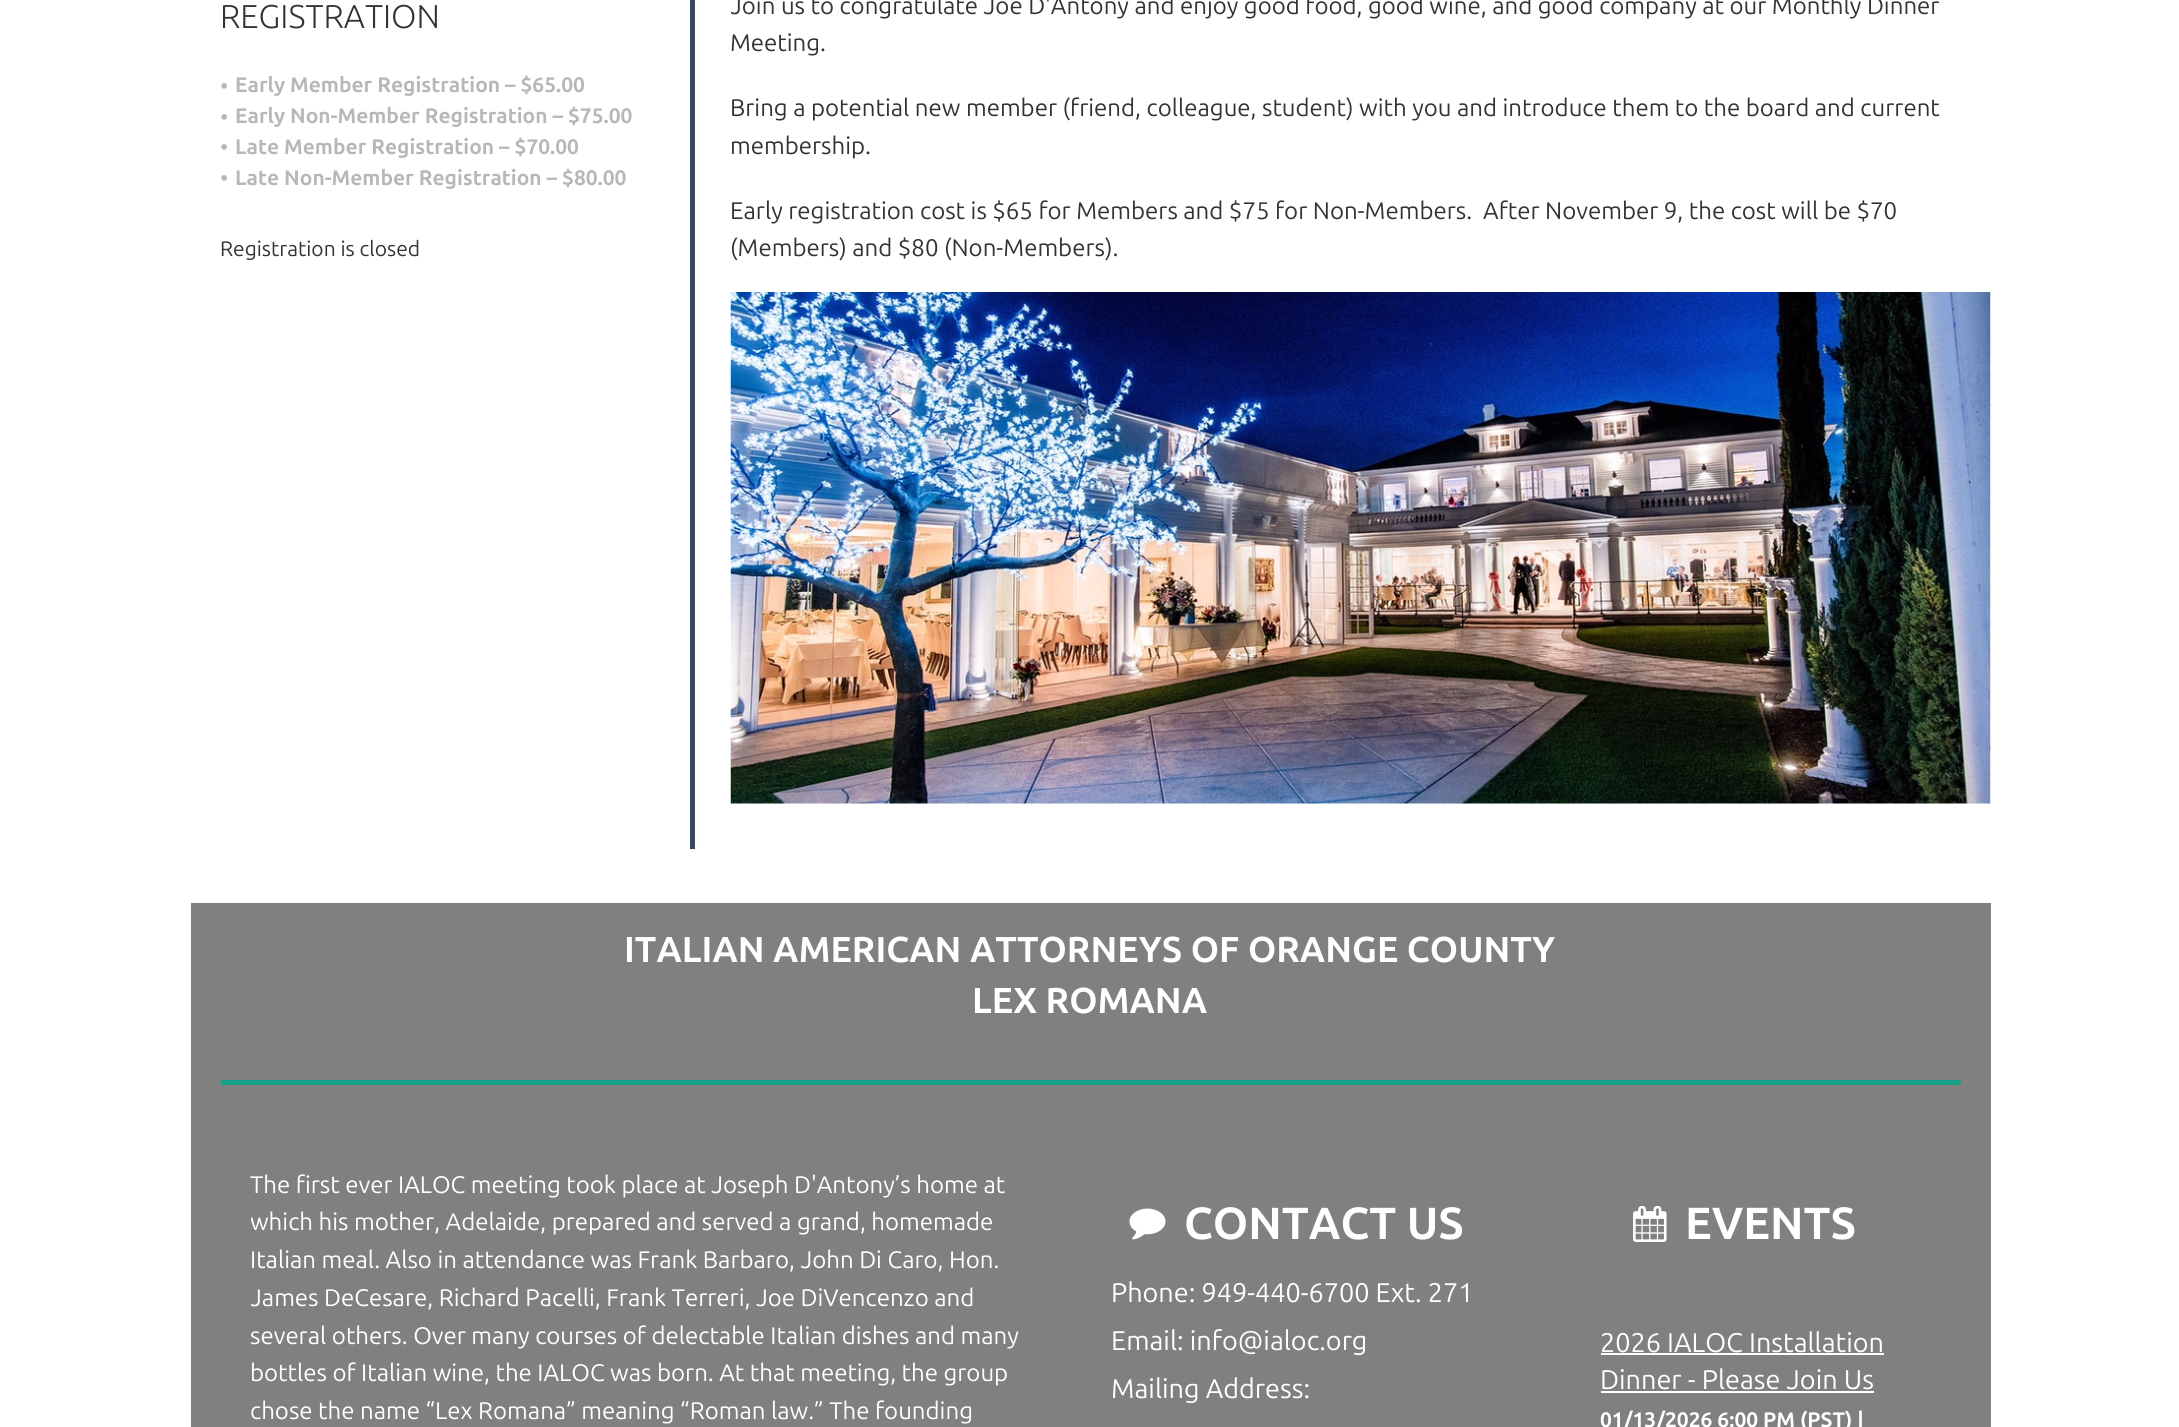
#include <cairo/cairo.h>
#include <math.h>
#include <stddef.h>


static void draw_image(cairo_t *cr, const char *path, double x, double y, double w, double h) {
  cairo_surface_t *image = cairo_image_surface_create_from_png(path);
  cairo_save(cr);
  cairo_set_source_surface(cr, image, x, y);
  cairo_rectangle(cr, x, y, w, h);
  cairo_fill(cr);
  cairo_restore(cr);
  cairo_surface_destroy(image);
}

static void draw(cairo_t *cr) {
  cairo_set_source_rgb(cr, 1, 1, 1);
  cairo_paint(cr);
  cairo_set_source_rgb(cr, 52 / 255.0, 73 / 255.0, 94 / 255.0);
  cairo_rectangle(cr, 690, 0, 5, 849);
  cairo_fill(cr);
  draw_image(cr, "images/1.png", 730, 292, 1261, 512);
  cairo_set_source_rgb(cr, 128 / 255.0, 128 / 255.0, 128 / 255.0);
  cairo_rectangle(cr, 191, 903, 1800, 524);
  cairo_fill(cr);
  cairo_set_source_rgb(cr, 22 / 255.0, 160 / 255.0, 133 / 255.0);
  cairo_rectangle(cr, 221, 1080, 1740, 5);
  cairo_fill(cr);
  draw_image(cr, "images/2.png", 1129, 1208, 37, 32);
  draw_image(cr, "images/3.png", 1633, 1206, 34, 36);
  cairo_set_source_rgb(cr, 1, 1, 1);
  cairo_rectangle(cr, 1601, 1353, 283, 2);
  cairo_fill(cr);
  cairo_rectangle(cr, 1601, 1391, 273, 2);
  cairo_fill(cr);
  cairo_select_font_face(cr, "Ubuntu Light", CAIRO_FONT_SLANT_NORMAL, CAIRO_FONT_WEIGHT_NORMAL);
  cairo_set_font_size(cr, 33);
  cairo_set_source_rgb(cr, 51 / 255.0, 51 / 255.0, 51 / 255.0);
  cairo_move_to(cr, 220, 28);
  cairo_show_text(cr, "REGISTRATION");
  cairo_select_font_face(cr, "Ubuntu", CAIRO_FONT_SLANT_NORMAL, CAIRO_FONT_WEIGHT_NORMAL);
  cairo_set_font_size(cr, 23);
  cairo_set_source_rgb(cr, 183 / 255.0, 183 / 255.0, 183 / 255.0);
  cairo_move_to(cr, 220, 94);
  cairo_show_text(cr, "•");
  cairo_select_font_face(cr, "Ubuntu", CAIRO_FONT_SLANT_NORMAL, CAIRO_FONT_WEIGHT_BOLD);
  cairo_set_font_size(cr, 21);
  cairo_move_to(cr, 235, 92);
  cairo_show_text(cr, "Early Member Registration – $65.00");
  cairo_select_font_face(cr, "Ubuntu", CAIRO_FONT_SLANT_NORMAL, CAIRO_FONT_WEIGHT_NORMAL);
  cairo_set_font_size(cr, 23);
  cairo_move_to(cr, 220, 125);
  cairo_show_text(cr, "•");
  cairo_select_font_face(cr, "Ubuntu", CAIRO_FONT_SLANT_NORMAL, CAIRO_FONT_WEIGHT_BOLD);
  cairo_set_font_size(cr, 21);
  cairo_move_to(cr, 235, 123);
  cairo_show_text(cr, "Early Non-Member Registration – $75.00");
  cairo_select_font_face(cr, "Ubuntu", CAIRO_FONT_SLANT_NORMAL, CAIRO_FONT_WEIGHT_NORMAL);
  cairo_set_font_size(cr, 23);
  cairo_move_to(cr, 220, 155);
  cairo_show_text(cr, "•");
  cairo_select_font_face(cr, "Ubuntu", CAIRO_FONT_SLANT_NORMAL, CAIRO_FONT_WEIGHT_BOLD);
  cairo_set_font_size(cr, 21);
  cairo_move_to(cr, 235, 154);
  cairo_show_text(cr, "Late Member Registration – $70.00");
  cairo_select_font_face(cr, "Ubuntu", CAIRO_FONT_SLANT_NORMAL, CAIRO_FONT_WEIGHT_NORMAL);
  cairo_set_font_size(cr, 23);
  cairo_move_to(cr, 220, 186);
  cairo_show_text(cr, "•");
  cairo_select_font_face(cr, "Ubuntu", CAIRO_FONT_SLANT_NORMAL, CAIRO_FONT_WEIGHT_BOLD);
  cairo_set_font_size(cr, 21);
  cairo_move_to(cr, 235, 185);
  cairo_show_text(cr, "Late Non-Member Registration – $80.00");
  cairo_select_font_face(cr, "Ubuntu", CAIRO_FONT_SLANT_NORMAL, CAIRO_FONT_WEIGHT_NORMAL);
  cairo_set_source_rgb(cr, 51 / 255.0, 51 / 255.0, 51 / 255.0);
  cairo_move_to(cr, 220, 256);
  cairo_show_text(cr, "Registration is closed");
  cairo_save(cr);
  cairo_rectangle(cr, 731, 0, 1260, 842);
  cairo_clip(cr);
  cairo_set_font_size(cr, 24);
  cairo_move_to(cr, 730, 14);
  cairo_show_text(cr, "Join us to congratulate Joe D'Antony and enjoy good food, good wine, and good company at our Monthly Dinner");
  cairo_restore(cr);
  cairo_set_font_size(cr, 24);
  cairo_move_to(cr, 730, 51);
  cairo_show_text(cr, "Meeting.");
  cairo_move_to(cr, 730, 116);
  cairo_show_text(cr, "Bring a potential new member (friend, colleague, student) with you and introduce them to the board and current");
  cairo_move_to(cr, 730, 154);
  cairo_show_text(cr, "membership.");
  cairo_move_to(cr, 730, 219);
  cairo_show_text(cr, "Early registration cost is $65 for Members and $75 for Non-Members.  After November 9, the cost will be $70");
  cairo_move_to(cr, 730, 256);
  cairo_show_text(cr, "(Members) and $80 (Non-Members).");
  cairo_select_font_face(cr, "Ubuntu", CAIRO_FONT_SLANT_NORMAL, CAIRO_FONT_WEIGHT_BOLD);
  cairo_set_font_size(cr, 36);
  cairo_set_source_rgb(cr, 1, 1, 1);
  cairo_move_to(cr, 624, 962);
  cairo_show_text(cr, "ITALIAN AMERICAN ATTORNEYS OF ORANGE COUNTY");
  cairo_move_to(cr, 972, 1013);
  cairo_show_text(cr, "LEX ROMANA");
  cairo_select_font_face(cr, "Ubuntu", CAIRO_FONT_SLANT_NORMAL, CAIRO_FONT_WEIGHT_NORMAL);
  cairo_set_font_size(cr, 24);
  cairo_move_to(cr, 250, 1193);
  cairo_show_text(cr, "The first ever IALOC meeting took place at Joseph D'Antony’s home at");
  cairo_save(cr);
  cairo_rectangle(cr, 251, 1164, 786, 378);
  cairo_clip(cr);
  cairo_move_to(cr, 250, 1230);
  cairo_show_text(cr, "which his mother, Adelaide, prepared and served a grand, homemade");
  cairo_restore(cr);
  cairo_move_to(cr, 250, 1268);
  cairo_show_text(cr, "Italian meal. Also in attendance was Frank Barbaro, John Di Caro, Hon.");
  cairo_save(cr);
  cairo_rectangle(cr, 251, 1164, 786, 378);
  cairo_clip(cr);
  cairo_move_to(cr, 250, 1306);
  cairo_show_text(cr, "James DeCesare, Richard Pacelli, Frank Terreri, Joe DiVencenzo and");
  cairo_restore(cr);
  cairo_move_to(cr, 250, 1344);
  cairo_show_text(cr, "several others. Over many courses of delectable Italian dishes and many");
  cairo_move_to(cr, 250, 1381);
  cairo_show_text(cr, "bottles of Italian wine, the IALOC was born. At that meeting, the group");
  cairo_move_to(cr, 250, 1419);
  cairo_show_text(cr, "chose the name “Lex Romana” meaning “Roman law.” The founding");
  cairo_select_font_face(cr, "Ubuntu", CAIRO_FONT_SLANT_NORMAL, CAIRO_FONT_WEIGHT_BOLD);
  cairo_set_font_size(cr, 45);
  cairo_move_to(cr, 1184, 1239);
  cairo_show_text(cr, "CONTACT US");
  cairo_select_font_face(cr, "Ubuntu", CAIRO_FONT_SLANT_NORMAL, CAIRO_FONT_WEIGHT_NORMAL);
  cairo_set_font_size(cr, 27);
  cairo_move_to(cr, 1111, 1302);
  cairo_show_text(cr, "Phone: 949-440-6700 Ext. 271");
  cairo_move_to(cr, 1111, 1350);
  cairo_show_text(cr, "Email: info@ialoc.org");
  cairo_move_to(cr, 1111, 1398);
  cairo_show_text(cr, "Mailing Address:");
  cairo_select_font_face(cr, "Ubuntu", CAIRO_FONT_SLANT_NORMAL, CAIRO_FONT_WEIGHT_BOLD);
  cairo_set_font_size(cr, 45);
  cairo_move_to(cr, 1685, 1239);
  cairo_show_text(cr, "EVENTS");
  cairo_select_font_face(cr, "Ubuntu", CAIRO_FONT_SLANT_NORMAL, CAIRO_FONT_WEIGHT_NORMAL);
  cairo_set_font_size(cr, 27);
  cairo_move_to(cr, 1600, 1352);
  cairo_show_text(cr, "2026 IALOC Installation");
  cairo_move_to(cr, 1600, 1389);
  cairo_show_text(cr, "Dinner - Please Join Us");
  cairo_select_font_face(cr, "Ubuntu", CAIRO_FONT_SLANT_NORMAL, CAIRO_FONT_WEIGHT_BOLD);
  cairo_set_font_size(cr, 21);
  cairo_move_to(cr, 1600, 1427);
  cairo_show_text(cr, "01/13/2026 6:00 PM (PST) |");
}

int main(void) {
  cairo_surface_t *surface = cairo_image_surface_create(CAIRO_FORMAT_RGB24, 2179, 1427);
  cairo_t *cr = cairo_create(surface);
  cairo_font_options_t *options = cairo_font_options_create();
  cairo_font_options_set_hint_metrics(options, CAIRO_HINT_METRICS_OFF);
  cairo_font_options_set_hint_style(options, CAIRO_HINT_STYLE_NONE);
  cairo_set_font_options(cr, options);
  cairo_set_miter_limit(cr, 4);
  draw(cr);
  cairo_surface_write_to_png(surface, "out.png");
  cairo_font_options_destroy(options);
  cairo_destroy(cr);
  cairo_surface_destroy(surface);
  return 0;
}
